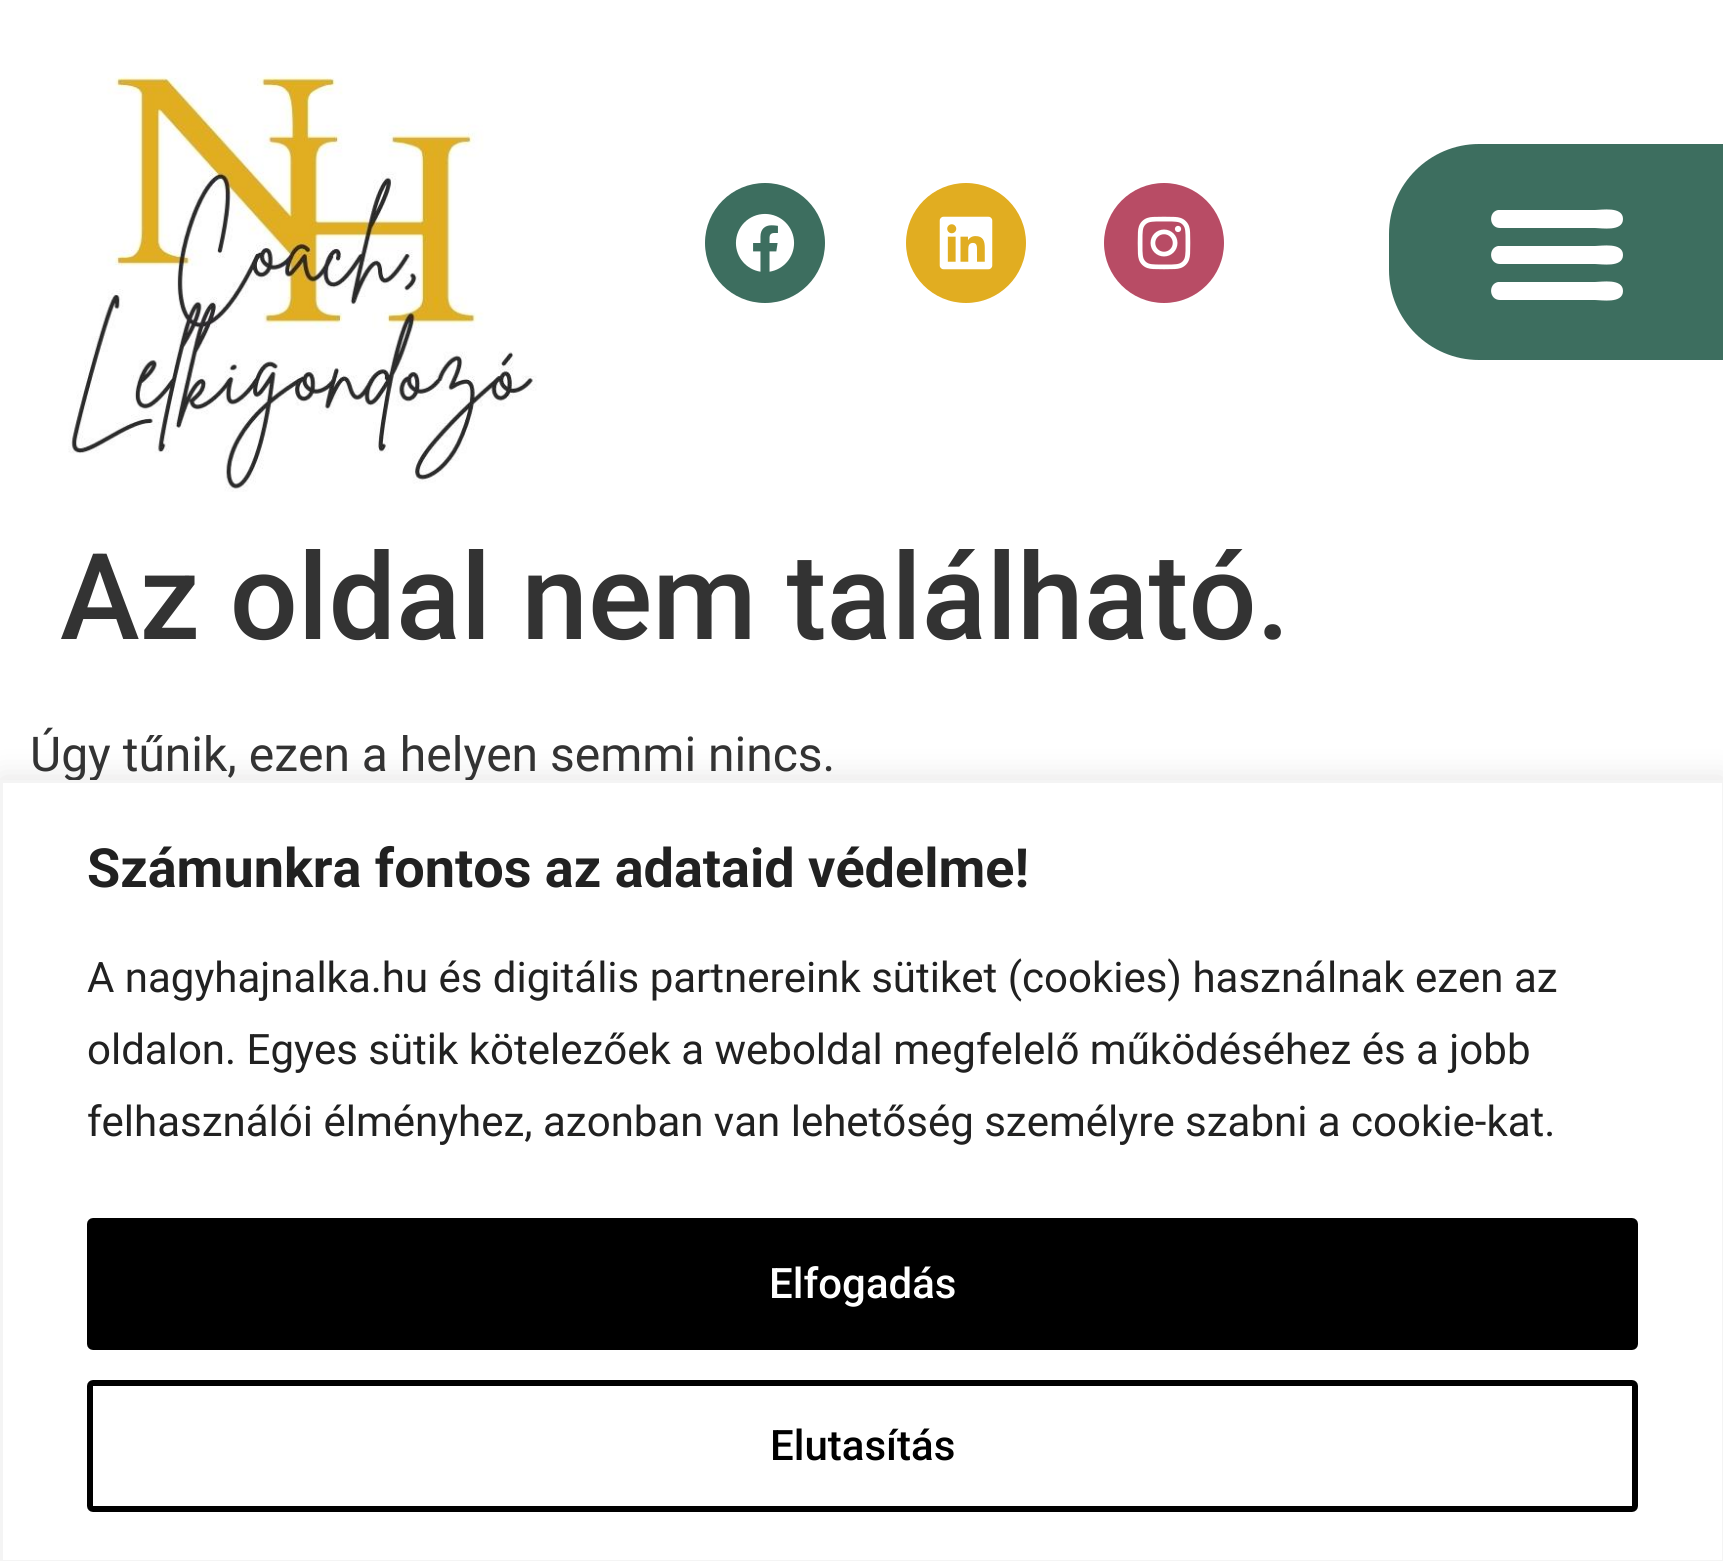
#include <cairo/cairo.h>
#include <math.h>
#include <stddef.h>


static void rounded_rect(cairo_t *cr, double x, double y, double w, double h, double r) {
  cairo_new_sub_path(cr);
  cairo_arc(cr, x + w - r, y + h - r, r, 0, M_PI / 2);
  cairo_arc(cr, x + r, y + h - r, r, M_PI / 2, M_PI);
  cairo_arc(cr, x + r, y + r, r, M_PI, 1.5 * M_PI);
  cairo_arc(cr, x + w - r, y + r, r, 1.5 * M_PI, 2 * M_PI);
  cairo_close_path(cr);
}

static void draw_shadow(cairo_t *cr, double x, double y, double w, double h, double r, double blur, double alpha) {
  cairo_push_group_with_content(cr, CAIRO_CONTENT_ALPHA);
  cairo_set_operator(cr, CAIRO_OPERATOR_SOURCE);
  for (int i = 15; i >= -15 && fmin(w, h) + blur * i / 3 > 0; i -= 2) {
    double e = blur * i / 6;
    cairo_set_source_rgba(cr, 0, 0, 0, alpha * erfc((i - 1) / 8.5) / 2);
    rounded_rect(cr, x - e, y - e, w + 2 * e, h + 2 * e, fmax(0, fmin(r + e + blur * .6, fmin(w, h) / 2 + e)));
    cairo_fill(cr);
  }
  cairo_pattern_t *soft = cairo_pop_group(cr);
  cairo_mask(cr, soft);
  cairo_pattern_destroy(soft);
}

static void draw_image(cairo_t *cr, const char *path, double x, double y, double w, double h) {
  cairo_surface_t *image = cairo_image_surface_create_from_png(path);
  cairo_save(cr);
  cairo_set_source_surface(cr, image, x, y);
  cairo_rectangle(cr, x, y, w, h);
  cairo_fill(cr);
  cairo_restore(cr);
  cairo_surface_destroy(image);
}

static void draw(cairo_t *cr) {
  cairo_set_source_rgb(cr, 1, 1, 1);
  cairo_paint(cr);
  draw_image(cr, "images/1.png", 68, 74, 469, 418);
  cairo_set_source_rgb(cr, 61 / 255.0, 110 / 255.0, 95 / 255.0);
  cairo_arc(cr, 765, 243, 60, 0, 2 * M_PI);
  cairo_fill(cr);
  draw_image(cr, "images/2.png", 735, 213, 60, 59);
  cairo_set_source_rgb(cr, 225 / 255.0, 173 / 255.0, 33 / 255.0);
  cairo_arc(cr, 966, 243, 60, 0, 2 * M_PI);
  cairo_fill(cr);
  draw_image(cr, "images/3.png", 939, 216, 54, 54);
  cairo_set_source_rgb(cr, 184 / 255.0, 76 / 255.0, 101 / 255.0);
  cairo_arc(cr, 1164, 243, 60, 0, 2 * M_PI);
  cairo_fill(cr);
  draw_image(cr, "images/4.png", 1137, 216, 54, 54);
  cairo_set_source_rgb(cr, 61 / 255.0, 110 / 255.0, 95 / 255.0);
  cairo_new_path(cr);
  cairo_move_to(cr, 1479, 144);
  cairo_line_to(cr, 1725, 144);
  cairo_line_to(cr, 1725, 360);
  cairo_line_to(cr, 1479, 360);
  cairo_curve_to(cr, 1429.5, 360, 1389, 319.5, 1389, 270);
  cairo_line_to(cr, 1389, 234);
  cairo_curve_to(cr, 1389, 184.5, 1429.5, 144, 1479, 144);
  cairo_close_path(cr);
  cairo_fill(cr);
  cairo_set_source_rgb(cr, 1, 1, 1);
  cairo_new_path(cr);
  cairo_move_to(cr, 1500, 228);
  cairo_line_to(cr, 1595, 228);
  cairo_curve_to(cr, 1601, 228, 1623, 232, 1623, 219);
  cairo_curve_to(cr, 1623, 206, 1601, 210, 1595, 210);
  cairo_line_to(cr, 1498, 210);
  cairo_curve_to(cr, 1488, 212, 1489, 228, 1500, 228);
  cairo_close_path(cr);
  cairo_move_to(cr, 1500, 264);
  cairo_line_to(cr, 1595, 264);
  cairo_curve_to(cr, 1601, 264, 1623, 268, 1623, 255);
  cairo_curve_to(cr, 1623, 242, 1601, 246, 1595, 246);
  cairo_line_to(cr, 1498, 246);
  cairo_curve_to(cr, 1488, 248, 1489, 264, 1500, 264);
  cairo_close_path(cr);
  cairo_move_to(cr, 1500, 300);
  cairo_line_to(cr, 1595, 300);
  cairo_curve_to(cr, 1601, 300, 1623, 304, 1623, 291);
  cairo_curve_to(cr, 1623, 278, 1601, 282, 1595, 282);
  cairo_line_to(cr, 1498, 282);
  cairo_curve_to(cr, 1488, 284, 1489, 300, 1500, 300);
  cairo_close_path(cr);
  cairo_fill(cr);
  cairo_set_source_rgb(cr, 172 / 255.0, 171 / 255.0, 171 / 255.0);
  draw_shadow(cr, 0, 777, 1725, 783, 0, 15, 0.3);
  cairo_select_font_face(cr, "Roboto Medium", CAIRO_FONT_SLANT_NORMAL, CAIRO_FONT_WEIGHT_NORMAL);
  cairo_set_font_size(cr, 120);
  cairo_set_source_rgb(cr, 51 / 255.0, 51 / 255.0, 51 / 255.0);
  cairo_move_to(cr, 60, 639);
  cairo_show_text(cr, "Az oldal nem található.");
  cairo_select_font_face(cr, "Roboto", CAIRO_FONT_SLANT_NORMAL, CAIRO_FONT_WEIGHT_NORMAL);
  cairo_set_font_size(cr, 48);
  cairo_move_to(cr, 30, 771);
  cairo_show_text(cr, "Úgy tűnik, ezen a helyen semmi nincs.");
  cairo_set_source_rgb(cr, 1, 1, 1);
  cairo_rectangle(cr, 1.5, 781.5, 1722, 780);
  cairo_fill_preserve(cr);
  cairo_set_source_rgb(cr, 244 / 255.0, 244 / 255.0, 244 / 255.0);
  cairo_set_line_width(cr, 3);
  cairo_stroke(cr);
  cairo_select_font_face(cr, "Roboto", CAIRO_FONT_SLANT_NORMAL, CAIRO_FONT_WEIGHT_BOLD);
  cairo_set_font_size(cr, 54);
  cairo_set_source_rgb(cr, 33 / 255.0, 33 / 255.0, 33 / 255.0);
  cairo_move_to(cr, 87, 887);
  cairo_show_text(cr, "Számunkra fontos az adataid védelme!");
  cairo_select_font_face(cr, "Roboto", CAIRO_FONT_SLANT_NORMAL, CAIRO_FONT_WEIGHT_NORMAL);
  cairo_set_font_size(cr, 42);
  cairo_move_to(cr, 87, 992);
  cairo_show_text(cr, "A nagyhajnalka.hu és digitális partnereink sütiket (cookies) használnak ezen az");
  cairo_move_to(cr, 87, 1064);
  cairo_show_text(cr, "oldalon. Egyes sütik kötelezőek a weboldal megfelelő működéséhez és a jobb");
  cairo_move_to(cr, 87, 1136);
  cairo_show_text(cr, "felhasználói élményhez, azonban van lehetőség személyre szabni a cookie-kat.");
  cairo_set_source_rgb(cr, 0, 0, 0);
  rounded_rect(cr, 90, 1221, 1545, 126, 3);
  cairo_fill_preserve(cr);
  cairo_set_line_width(cr, 6);
  cairo_stroke(cr);
  cairo_select_font_face(cr, "Roboto Medium", CAIRO_FONT_SLANT_NORMAL, CAIRO_FONT_WEIGHT_NORMAL);
  cairo_set_source_rgb(cr, 1, 1, 1);
  cairo_move_to(cr, 769, 1298);
  cairo_show_text(cr, "Elfogadás");
  rounded_rect(cr, 90, 1383, 1545, 126, 3);
  cairo_set_source_rgb(cr, 0, 0, 0);
  cairo_stroke(cr);
  cairo_move_to(cr, 770, 1460);
  cairo_show_text(cr, "Elutasítás");
}

int main(void) {
  cairo_surface_t *surface = cairo_image_surface_create(CAIRO_FORMAT_RGB24, 1723, 1561);
  cairo_t *cr = cairo_create(surface);
  cairo_font_options_t *options = cairo_font_options_create();
  cairo_font_options_set_hint_metrics(options, CAIRO_HINT_METRICS_OFF);
  cairo_font_options_set_hint_style(options, CAIRO_HINT_STYLE_NONE);
  cairo_set_font_options(cr, options);
  cairo_set_miter_limit(cr, 4);
  draw(cr);
  cairo_surface_write_to_png(surface, "out.png");
  cairo_font_options_destroy(options);
  cairo_destroy(cr);
  cairo_surface_destroy(surface);
  return 0;
}
